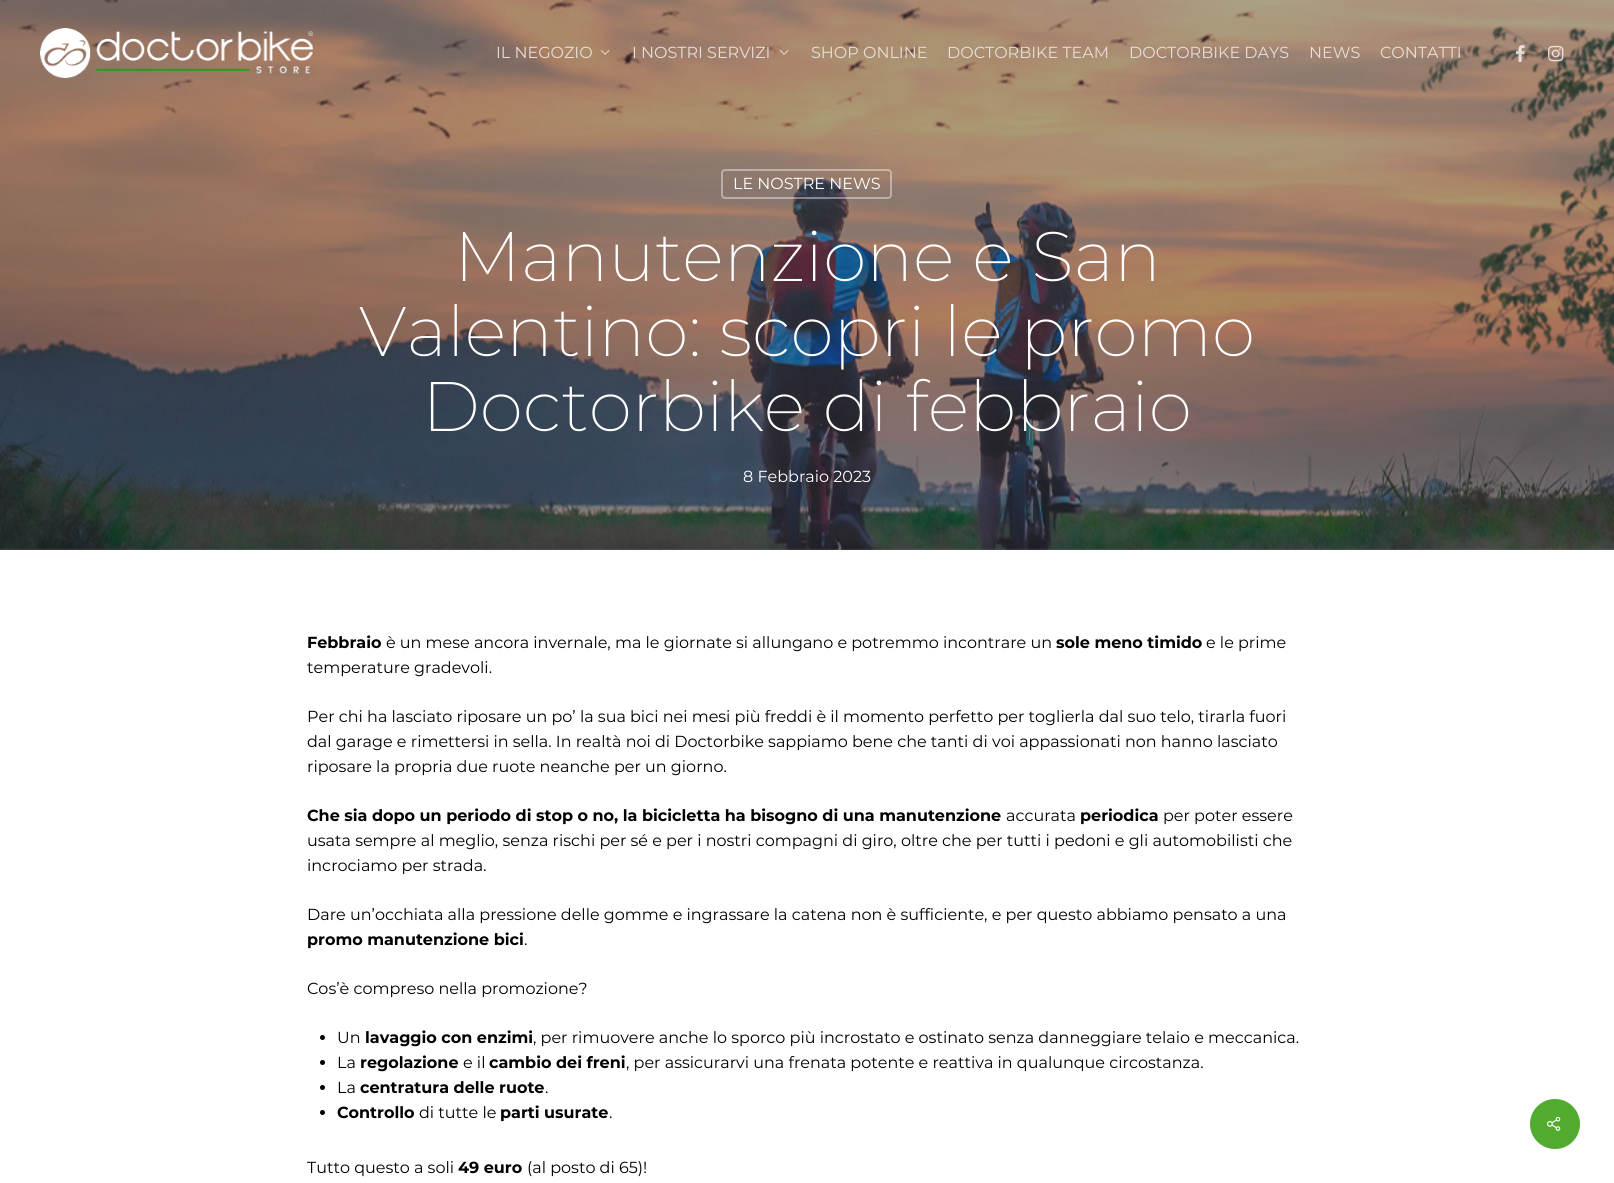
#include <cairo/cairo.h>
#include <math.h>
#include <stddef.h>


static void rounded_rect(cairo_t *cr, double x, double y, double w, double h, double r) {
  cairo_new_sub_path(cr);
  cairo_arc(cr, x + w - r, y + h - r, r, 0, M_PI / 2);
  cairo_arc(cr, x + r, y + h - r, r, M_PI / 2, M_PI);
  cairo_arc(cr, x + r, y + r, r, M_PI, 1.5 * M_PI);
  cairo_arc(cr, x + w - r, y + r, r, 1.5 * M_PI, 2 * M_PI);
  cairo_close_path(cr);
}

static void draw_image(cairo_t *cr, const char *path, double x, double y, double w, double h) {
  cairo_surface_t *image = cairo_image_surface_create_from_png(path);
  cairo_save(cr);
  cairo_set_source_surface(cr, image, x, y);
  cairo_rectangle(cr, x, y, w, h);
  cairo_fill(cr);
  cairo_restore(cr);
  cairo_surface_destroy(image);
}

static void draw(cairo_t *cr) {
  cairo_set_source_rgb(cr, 1, 1, 1);
  cairo_paint(cr);
  draw_image(cr, "images/6.png", 0, 0, 1614, 550);
  draw_image(cr, "images/1.png", 40, 28, 273, 50);
  draw_image(cr, "images/2.png", 600, 49, 10, 6);
  draw_image(cr, "images/3.png", 779, 49, 10, 6);
  draw_image(cr, "images/4.png", 1515, 45, 10, 17);
  draw_image(cr, "images/5.png", 1548, 45, 16, 17);
  rounded_rect(cr, 722, 170, 169, 28, 3);
  cairo_set_source_rgba(cr, 1, 1, 1, 0.4);
  cairo_stroke(cr);
  cairo_set_source_rgb(cr, 0, 0, 0);
  cairo_arc(cr, 322.5, 1037.5, 2.5, 0, 2 * M_PI);
  cairo_fill(cr);
  cairo_arc(cr, 322.5, 1062.5, 2.5, 0, 2 * M_PI);
  cairo_fill(cr);
  cairo_arc(cr, 322.5, 1087.5, 2.5, 0, 2 * M_PI);
  cairo_fill(cr);
  cairo_arc(cr, 322.5, 1112.5, 2.5, 0, 2 * M_PI);
  cairo_fill(cr);
  cairo_set_source_rgb(cr, 80 / 255.0, 171 / 255.0, 46 / 255.0);
  cairo_arc(cr, 1555, 1124, 25, 0, 2 * M_PI);
  cairo_fill(cr);
  draw_image(cr, "images/7.png", 1547, 1116, 14, 15);
  cairo_select_font_face(cr, "Montserrat", CAIRO_FONT_SLANT_NORMAL, CAIRO_FONT_WEIGHT_NORMAL);
  cairo_set_font_size(cr, 16);
  cairo_set_source_rgb(cr, 231 / 255.0, 222 / 255.0, 216 / 255.0);
  cairo_move_to(cr, 496, 58);
  cairo_show_text(cr, "IL NEGOZIO");
  cairo_move_to(cr, 632, 58);
  cairo_show_text(cr, "I NOSTRI SERVIZI");
  cairo_move_to(cr, 811, 58);
  cairo_show_text(cr, "SHOP ONLINE");
  cairo_move_to(cr, 947, 58);
  cairo_show_text(cr, "DOCTORBIKE TEAM");
  cairo_move_to(cr, 1129, 58);
  cairo_show_text(cr, "DOCTORBIKE DAYS");
  cairo_move_to(cr, 1309, 58);
  cairo_show_text(cr, "NEWS");
  cairo_move_to(cr, 1380, 58);
  cairo_show_text(cr, "CONTATTI");
  cairo_set_source_rgb(cr, 1, 1, 1);
  cairo_move_to(cr, 733, 189);
  cairo_show_text(cr, "LE NOSTRE NEWS");
  cairo_select_font_face(cr, "Montserrat ExtraLight", CAIRO_FONT_SLANT_NORMAL, CAIRO_FONT_WEIGHT_NORMAL);
  cairo_set_font_size(cr, 70);
  cairo_move_to(cr, 454, 281);
  cairo_show_text(cr, "Manutenzione e San");
  cairo_move_to(cr, 359, 356);
  cairo_show_text(cr, "Valentino: scopri le promo");
  cairo_move_to(cr, 422, 431);
  cairo_show_text(cr, "Doctorbike di febbraio");
  cairo_select_font_face(cr, "Montserrat", CAIRO_FONT_SLANT_NORMAL, CAIRO_FONT_WEIGHT_NORMAL);
  cairo_set_font_size(cr, 16);
  cairo_move_to(cr, 743, 482);
  cairo_show_text(cr, "8 Febbraio 2023");
  cairo_select_font_face(cr, "Montserrat", CAIRO_FONT_SLANT_NORMAL, CAIRO_FONT_WEIGHT_BOLD);
  cairo_set_source_rgb(cr, 0, 0, 0);
  cairo_move_to(cr, 307, 648);
  cairo_show_text(cr, "Febbraio");
  cairo_select_font_face(cr, "Montserrat", CAIRO_FONT_SLANT_NORMAL, CAIRO_FONT_WEIGHT_NORMAL);
  cairo_move_to(cr, 386, 648);
  cairo_show_text(cr, "è un mese ancora invernale, ma le giornate si allungano e potremmo incontrare un");
  cairo_select_font_face(cr, "Montserrat", CAIRO_FONT_SLANT_NORMAL, CAIRO_FONT_WEIGHT_BOLD);
  cairo_move_to(cr, 1056, 648);
  cairo_show_text(cr, "sole meno timido");
  cairo_select_font_face(cr, "Montserrat", CAIRO_FONT_SLANT_NORMAL, CAIRO_FONT_WEIGHT_NORMAL);
  cairo_move_to(cr, 1206, 648);
  cairo_show_text(cr, "e le prime");
  cairo_move_to(cr, 307, 673);
  cairo_show_text(cr, "temperature gradevoli.");
  cairo_move_to(cr, 307, 722);
  cairo_show_text(cr, "Per chi ha lasciato riposare un po’ la sua bici nei mesi più freddi è il momento perfetto per toglierla dal suo telo, tirarla fuori");
  cairo_move_to(cr, 307, 747);
  cairo_show_text(cr, "dal garage e rimettersi in sella. In realtà noi di Doctorbike sappiamo bene che tanti di voi appassionati non hanno lasciato");
  cairo_move_to(cr, 307, 772);
  cairo_show_text(cr, "riposare la propria due ruote neanche per un giorno.");
  cairo_select_font_face(cr, "Montserrat", CAIRO_FONT_SLANT_NORMAL, CAIRO_FONT_WEIGHT_BOLD);
  cairo_move_to(cr, 307, 821);
  cairo_show_text(cr, "Che sia dopo un periodo di stop o no, la bicicletta ha bisogno di una manutenzione");
  cairo_select_font_face(cr, "Montserrat", CAIRO_FONT_SLANT_NORMAL, CAIRO_FONT_WEIGHT_NORMAL);
  cairo_move_to(cr, 1006, 821);
  cairo_show_text(cr, "accurata");
  cairo_select_font_face(cr, "Montserrat", CAIRO_FONT_SLANT_NORMAL, CAIRO_FONT_WEIGHT_BOLD);
  cairo_move_to(cr, 1080, 821);
  cairo_show_text(cr, "periodica");
  cairo_select_font_face(cr, "Montserrat", CAIRO_FONT_SLANT_NORMAL, CAIRO_FONT_WEIGHT_NORMAL);
  cairo_move_to(cr, 1163, 821);
  cairo_show_text(cr, "per poter essere");
  cairo_move_to(cr, 307, 846);
  cairo_show_text(cr, "usata sempre al meglio, senza rischi per sé e per i nostri compagni di giro, oltre che per tutti i pedoni e gli automobilisti che");
  cairo_move_to(cr, 307, 871);
  cairo_show_text(cr, "incrociamo per strada.");
  cairo_move_to(cr, 307, 920);
  cairo_show_text(cr, "Dare un’occhiata alla pressione delle gomme e ingrassare la catena non è sufficiente, e per questo abbiamo pensato a una");
  cairo_select_font_face(cr, "Montserrat", CAIRO_FONT_SLANT_NORMAL, CAIRO_FONT_WEIGHT_BOLD);
  cairo_move_to(cr, 307, 945);
  cairo_show_text(cr, "promo manutenzione bici");
  cairo_select_font_face(cr, "Montserrat", CAIRO_FONT_SLANT_NORMAL, CAIRO_FONT_WEIGHT_NORMAL);
  cairo_move_to(cr, 524, 945);
  cairo_show_text(cr, ".");
  cairo_move_to(cr, 307, 994);
  cairo_show_text(cr, "Cos’è compreso nella promozione?");
  cairo_move_to(cr, 337, 1043);
  cairo_show_text(cr, "Un");
  cairo_select_font_face(cr, "Montserrat", CAIRO_FONT_SLANT_NORMAL, CAIRO_FONT_WEIGHT_BOLD);
  cairo_move_to(cr, 365, 1043);
  cairo_show_text(cr, "lavaggio con enzimi");
  cairo_select_font_face(cr, "Montserrat", CAIRO_FONT_SLANT_NORMAL, CAIRO_FONT_WEIGHT_NORMAL);
  cairo_move_to(cr, 533, 1043);
  cairo_show_text(cr, ", per rimuovere anche lo sporco più incrostato e ostinato senza danneggiare telaio e meccanica.");
  cairo_move_to(cr, 337, 1068);
  cairo_show_text(cr, "La");
  cairo_select_font_face(cr, "Montserrat", CAIRO_FONT_SLANT_NORMAL, CAIRO_FONT_WEIGHT_BOLD);
  cairo_move_to(cr, 360, 1068);
  cairo_show_text(cr, "regolazione");
  cairo_select_font_face(cr, "Montserrat", CAIRO_FONT_SLANT_NORMAL, CAIRO_FONT_WEIGHT_NORMAL);
  cairo_move_to(cr, 463, 1068);
  cairo_show_text(cr, "e il");
  cairo_select_font_face(cr, "Montserrat", CAIRO_FONT_SLANT_NORMAL, CAIRO_FONT_WEIGHT_BOLD);
  cairo_move_to(cr, 489, 1068);
  cairo_show_text(cr, "cambio dei freni");
  cairo_select_font_face(cr, "Montserrat", CAIRO_FONT_SLANT_NORMAL, CAIRO_FONT_WEIGHT_NORMAL);
  cairo_move_to(cr, 626, 1068);
  cairo_show_text(cr, ", per assicurarvi una frenata potente e reattiva in qualunque circostanza.");
  cairo_move_to(cr, 337, 1093);
  cairo_show_text(cr, "La");
  cairo_select_font_face(cr, "Montserrat", CAIRO_FONT_SLANT_NORMAL, CAIRO_FONT_WEIGHT_BOLD);
  cairo_move_to(cr, 360, 1093);
  cairo_show_text(cr, "centratura delle ruote");
  cairo_select_font_face(cr, "Montserrat", CAIRO_FONT_SLANT_NORMAL, CAIRO_FONT_WEIGHT_NORMAL);
  cairo_move_to(cr, 545, 1093);
  cairo_show_text(cr, ".");
  cairo_select_font_face(cr, "Montserrat", CAIRO_FONT_SLANT_NORMAL, CAIRO_FONT_WEIGHT_BOLD);
  cairo_move_to(cr, 337, 1118);
  cairo_show_text(cr, "Controllo");
  cairo_select_font_face(cr, "Montserrat", CAIRO_FONT_SLANT_NORMAL, CAIRO_FONT_WEIGHT_NORMAL);
  cairo_move_to(cr, 419, 1118);
  cairo_show_text(cr, "di tutte le");
  cairo_select_font_face(cr, "Montserrat", CAIRO_FONT_SLANT_NORMAL, CAIRO_FONT_WEIGHT_BOLD);
  cairo_move_to(cr, 500, 1118);
  cairo_show_text(cr, "parti usurate");
  cairo_select_font_face(cr, "Montserrat", CAIRO_FONT_SLANT_NORMAL, CAIRO_FONT_WEIGHT_NORMAL);
  cairo_move_to(cr, 609, 1118);
  cairo_show_text(cr, ".");
  cairo_move_to(cr, 307, 1173);
  cairo_show_text(cr, "Tutto questo a soli");
  cairo_select_font_face(cr, "Montserrat", CAIRO_FONT_SLANT_NORMAL, CAIRO_FONT_WEIGHT_BOLD);
  cairo_move_to(cr, 458, 1173);
  cairo_show_text(cr, "49 euro");
  cairo_select_font_face(cr, "Montserrat", CAIRO_FONT_SLANT_NORMAL, CAIRO_FONT_WEIGHT_NORMAL);
  cairo_move_to(cr, 527, 1173);
  cairo_show_text(cr, "(al posto di 65)!");
}

int main(void) {
  cairo_surface_t *surface = cairo_image_surface_create(CAIRO_FORMAT_RGB24, 1614, 1183);
  cairo_t *cr = cairo_create(surface);
  cairo_font_options_t *options = cairo_font_options_create();
  cairo_font_options_set_hint_metrics(options, CAIRO_HINT_METRICS_OFF);
  cairo_font_options_set_hint_style(options, CAIRO_HINT_STYLE_NONE);
  cairo_set_font_options(cr, options);
  cairo_set_miter_limit(cr, 4);
  draw(cr);
  cairo_surface_write_to_png(surface, "out.png");
  cairo_font_options_destroy(options);
  cairo_destroy(cr);
  cairo_surface_destroy(surface);
  return 0;
}
